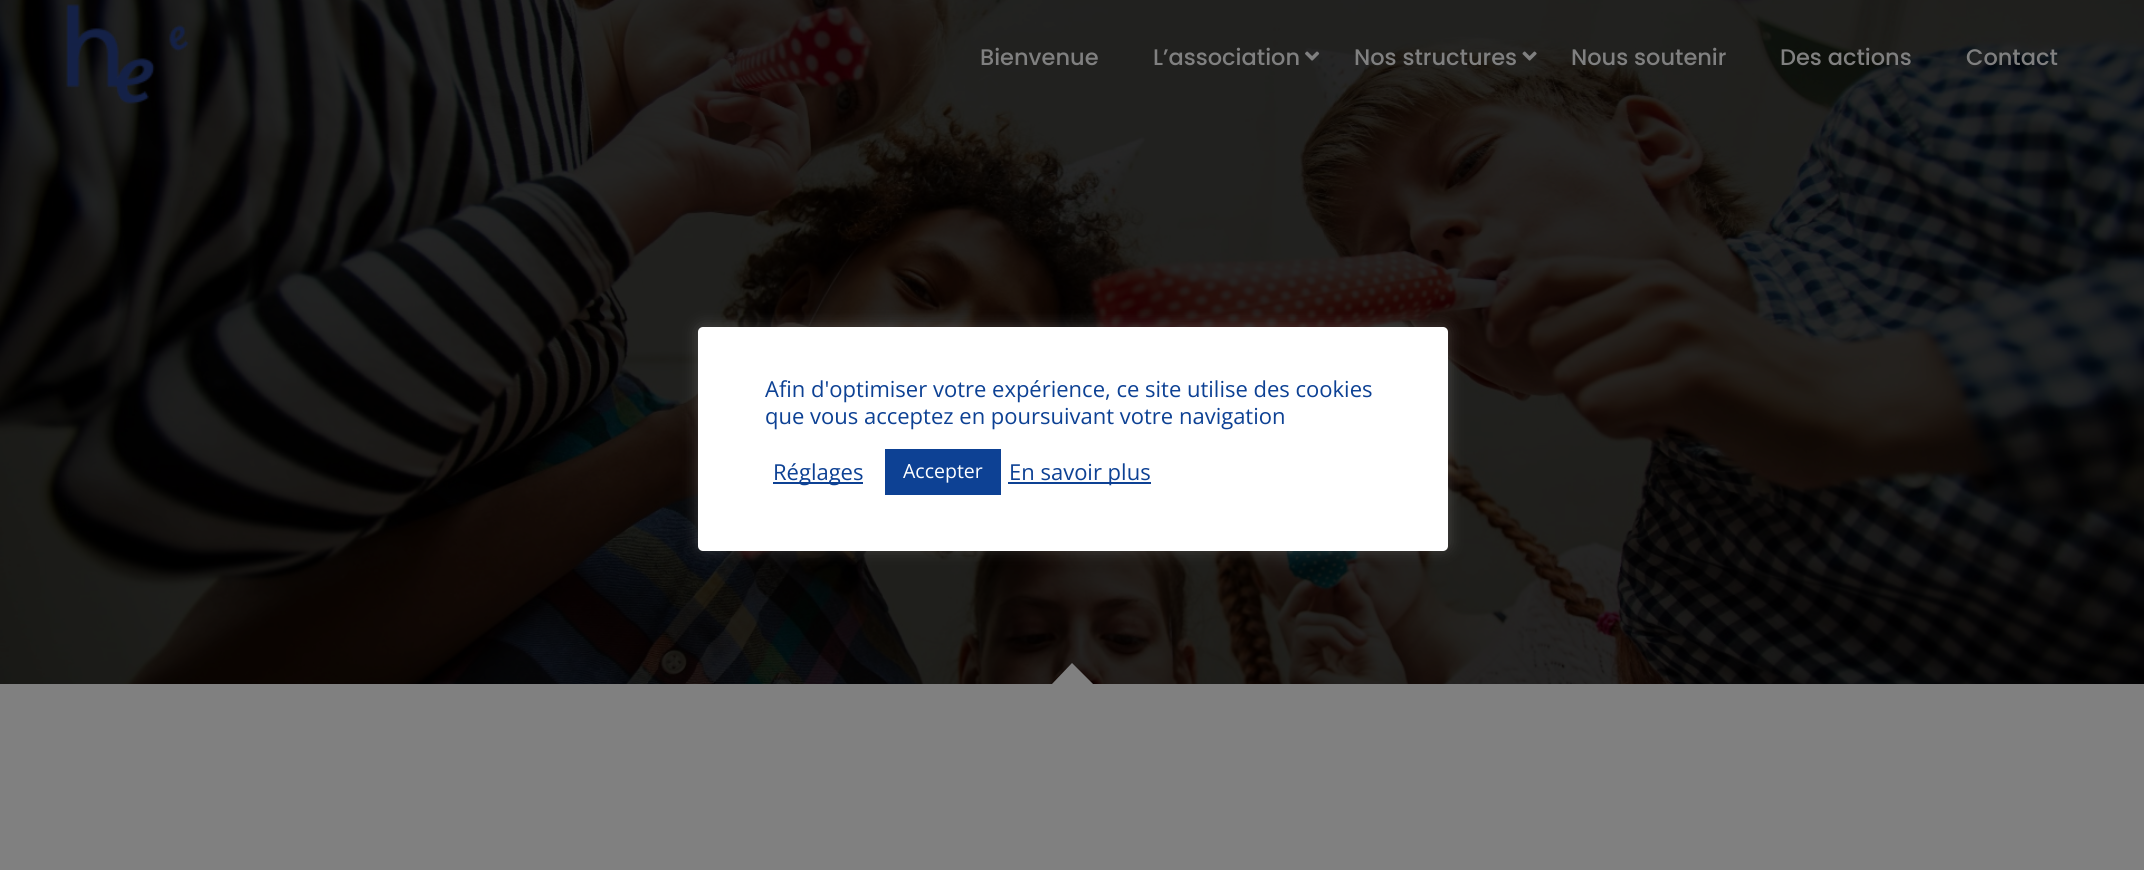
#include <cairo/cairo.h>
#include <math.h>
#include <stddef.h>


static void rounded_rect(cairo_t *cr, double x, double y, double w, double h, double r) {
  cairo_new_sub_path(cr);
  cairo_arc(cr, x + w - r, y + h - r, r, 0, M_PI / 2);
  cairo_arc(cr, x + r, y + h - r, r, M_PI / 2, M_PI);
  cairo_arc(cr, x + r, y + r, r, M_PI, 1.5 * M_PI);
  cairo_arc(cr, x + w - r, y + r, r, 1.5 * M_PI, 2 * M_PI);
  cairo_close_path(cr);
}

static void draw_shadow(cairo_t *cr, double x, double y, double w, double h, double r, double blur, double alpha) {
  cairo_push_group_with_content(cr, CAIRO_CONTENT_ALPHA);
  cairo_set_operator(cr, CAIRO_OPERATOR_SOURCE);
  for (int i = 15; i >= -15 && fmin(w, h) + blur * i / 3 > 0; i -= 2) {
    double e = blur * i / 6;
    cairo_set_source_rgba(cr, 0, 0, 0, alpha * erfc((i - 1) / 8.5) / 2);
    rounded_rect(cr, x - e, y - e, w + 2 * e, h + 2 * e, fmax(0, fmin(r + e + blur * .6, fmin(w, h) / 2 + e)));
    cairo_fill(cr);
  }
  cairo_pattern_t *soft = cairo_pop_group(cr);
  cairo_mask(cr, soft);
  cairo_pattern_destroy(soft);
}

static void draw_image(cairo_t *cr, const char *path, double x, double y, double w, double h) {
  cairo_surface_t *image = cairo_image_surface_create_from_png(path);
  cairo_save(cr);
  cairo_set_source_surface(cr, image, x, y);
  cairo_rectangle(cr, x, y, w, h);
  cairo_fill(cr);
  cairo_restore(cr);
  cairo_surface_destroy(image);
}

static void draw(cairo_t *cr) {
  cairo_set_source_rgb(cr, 128 / 255.0, 128 / 255.0, 128 / 255.0);
  cairo_paint(cr);
  draw_image(cr, "images/1.png", 0, 0, 2144, 684);
  cairo_set_source_rgb(cr, 128 / 255.0, 128 / 255.0, 128 / 255.0);
  cairo_new_path(cr);
  cairo_move_to(cr, 1072, 663);
  cairo_line_to(cr, 1094, 685);
  cairo_line_to(cr, 1072, 706);
  cairo_line_to(cr, 1051, 685);
  cairo_close_path(cr);
  cairo_fill(cr);
  draw_image(cr, "images/2.png", 66, 4, 123, 100);
  draw_image(cr, "images/3.png", 1305, 51, 15, 10);
  draw_image(cr, "images/4.png", 1522, 51, 15, 10);
  cairo_set_source_rgb(cr, 172 / 255.0, 171 / 255.0, 171 / 255.0);
  draw_shadow(cr, 698, 326, 750, 223, 5, 7.5, 0.3);
  cairo_set_source_rgb(cr, 1, 1, 1);
  rounded_rect(cr, 698, 327, 750, 224, 5);
  cairo_fill(cr);
  cairo_set_source_rgb(cr, 13 / 255.0, 65 / 255.0, 148 / 255.0);
  cairo_rectangle(cr, 773, 482, 90, 2);
  cairo_fill(cr);
  cairo_rectangle(cr, 885, 449, 116, 46);
  cairo_fill(cr);
  cairo_rectangle(cr, 1008, 482, 143, 2);
  cairo_fill(cr);
  cairo_select_font_face(cr, "Poppins Medium", CAIRO_FONT_SLANT_NORMAL, CAIRO_FONT_WEIGHT_NORMAL);
  cairo_set_font_size(cr, 22.5);
  cairo_set_source_rgb(cr, 128 / 255.0, 128 / 255.0, 128 / 255.0);
  cairo_move_to(cr, 980, 65);
  cairo_show_text(cr, "Bienvenue");
  cairo_move_to(cr, 1153, 65);
  cairo_show_text(cr, "L’association");
  cairo_move_to(cr, 1354, 65);
  cairo_show_text(cr, "Nos structures");
  cairo_move_to(cr, 1571, 65);
  cairo_show_text(cr, "Nous soutenir");
  cairo_move_to(cr, 1780, 65);
  cairo_show_text(cr, "Des actions");
  cairo_move_to(cr, 1966, 65);
  cairo_show_text(cr, "Contact");
  cairo_select_font_face(cr, "Open Sans", CAIRO_FONT_SLANT_NORMAL, CAIRO_FONT_WEIGHT_NORMAL);
  cairo_set_font_size(cr, 22);
  cairo_set_source_rgb(cr, 13 / 255.0, 65 / 255.0, 148 / 255.0);
  cairo_move_to(cr, 765, 397);
  cairo_show_text(cr, "Afin d'optimiser votre expérience, ce site utilise des cookies");
  cairo_move_to(cr, 765, 424);
  cairo_show_text(cr, "que vous acceptez en poursuivant votre navigation");
  cairo_move_to(cr, 773, 480);
  cairo_show_text(cr, "Réglages");
  cairo_set_font_size(cr, 19.5);
  cairo_set_source_rgb(cr, 1, 1, 1);
  cairo_move_to(cr, 903, 478);
  cairo_show_text(cr, "Accepter");
  cairo_set_font_size(cr, 22);
  cairo_set_source_rgb(cr, 13 / 255.0, 65 / 255.0, 148 / 255.0);
  cairo_move_to(cr, 1009, 480);
  cairo_show_text(cr, "En savoir plus");
}

int main(void) {
  cairo_surface_t *surface = cairo_image_surface_create(CAIRO_FORMAT_RGB24, 2144, 870);
  cairo_t *cr = cairo_create(surface);
  cairo_font_options_t *options = cairo_font_options_create();
  cairo_font_options_set_hint_metrics(options, CAIRO_HINT_METRICS_OFF);
  cairo_font_options_set_hint_style(options, CAIRO_HINT_STYLE_NONE);
  cairo_set_font_options(cr, options);
  cairo_set_miter_limit(cr, 4);
  draw(cr);
  cairo_surface_write_to_png(surface, "out.png");
  cairo_font_options_destroy(options);
  cairo_destroy(cr);
  cairo_surface_destroy(surface);
  return 0;
}
